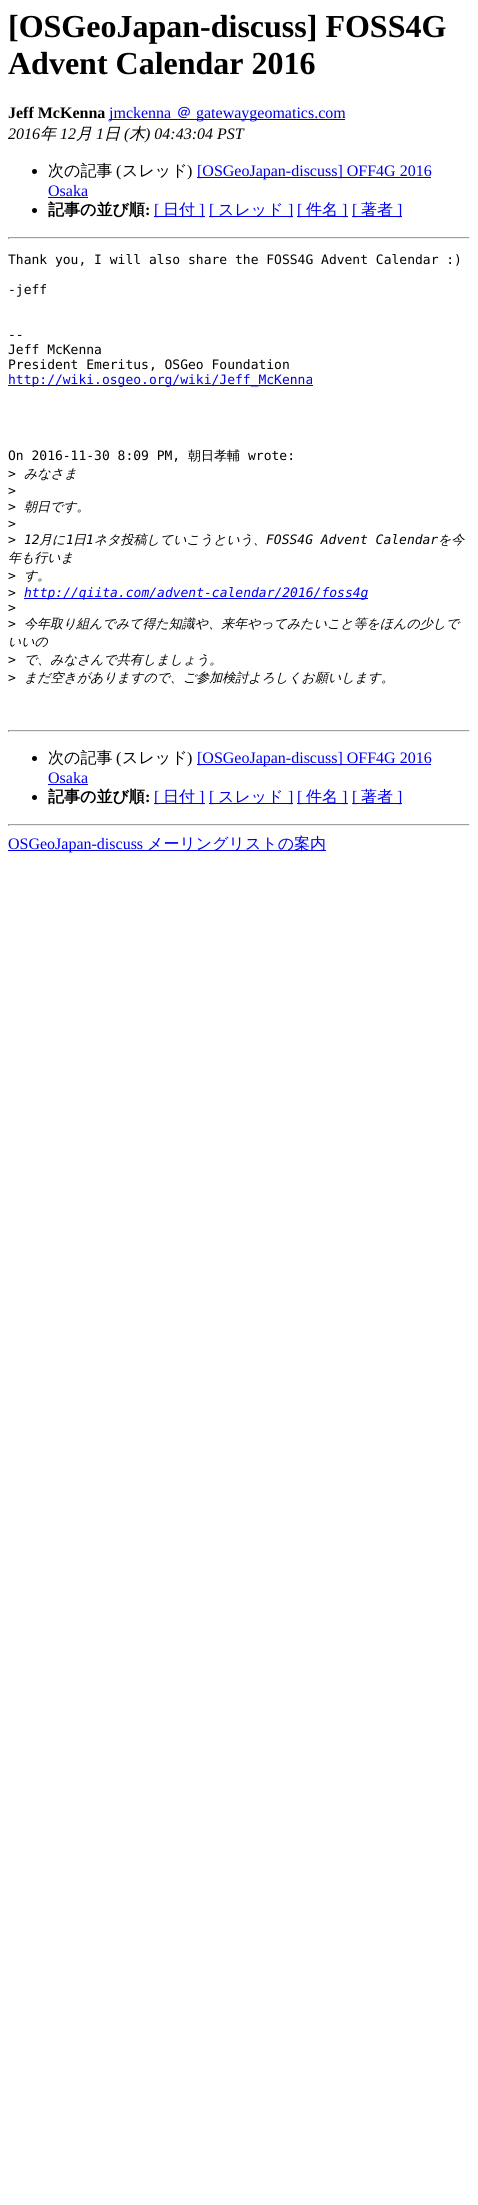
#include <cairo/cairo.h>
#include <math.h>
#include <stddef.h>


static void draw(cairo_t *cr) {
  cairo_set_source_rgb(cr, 1, 1, 1);
  cairo_paint(cr);
  cairo_set_source_rgb(cr, 0, 0, 238 / 255.0);
  cairo_rectangle(cr, 109, 119, 236, 1);
  cairo_fill(cr);
  cairo_set_source_rgb(cr, 0, 0, 0);
  cairo_arc(cr, 34.5, 171.5, 2.5, 0, 2 * M_PI);
  cairo_fill(cr);
  cairo_set_source_rgb(cr, 0, 0, 238 / 255.0);
  cairo_rectangle(cr, 197, 177, 234, 1);
  cairo_fill(cr);
  cairo_rectangle(cr, 48, 197, 40, 1);
  cairo_fill(cr);
  cairo_set_source_rgb(cr, 0, 0, 0);
  cairo_arc(cr, 34.5, 210.5, 2.5, 0, 2 * M_PI);
  cairo_fill(cr);
  cairo_set_source_rgb(cr, 0, 0, 238 / 255.0);
  cairo_rectangle(cr, 154, 216, 51, 1);
  cairo_fill(cr);
  cairo_rectangle(cr, 209, 216, 84, 1);
  cairo_fill(cr);
  cairo_rectangle(cr, 297, 216, 51, 1);
  cairo_fill(cr);
  cairo_rectangle(cr, 352, 216, 50, 1);
  cairo_fill(cr);
  cairo_set_source_rgb(cr, 159 / 255.0, 159 / 255.0, 159 / 255.0);
  cairo_rectangle(cr, 8, 237, 462, 1);
  cairo_fill(cr);
  cairo_set_source_rgb(cr, 238 / 255.0, 238 / 255.0, 238 / 255.0);
  cairo_rectangle(cr, 469, 237, 1, 2);
  cairo_fill(cr);
  cairo_rectangle(cr, 8, 238, 462, 1);
  cairo_fill(cr);
  cairo_set_source_rgb(cr, 159 / 255.0, 159 / 255.0, 159 / 255.0);
  cairo_rectangle(cr, 8, 237, 1, 2);
  cairo_fill(cr);
  cairo_set_source_rgb(cr, 0, 0, 238 / 255.0);
  cairo_rectangle(cr, 8, 385, 305, 1);
  cairo_fill(cr);
  cairo_rectangle(cr, 24, 598, 344, 1);
  cairo_fill(cr);
  cairo_set_source_rgb(cr, 159 / 255.0, 159 / 255.0, 159 / 255.0);
  cairo_rectangle(cr, 8, 730, 462, 1);
  cairo_fill(cr);
  cairo_set_source_rgb(cr, 238 / 255.0, 238 / 255.0, 238 / 255.0);
  cairo_rectangle(cr, 469, 730, 1, 2);
  cairo_fill(cr);
  cairo_rectangle(cr, 8, 731, 462, 1);
  cairo_fill(cr);
  cairo_set_source_rgb(cr, 159 / 255.0, 159 / 255.0, 159 / 255.0);
  cairo_rectangle(cr, 8, 730, 1, 2);
  cairo_fill(cr);
  cairo_set_source_rgb(cr, 0, 0, 0);
  cairo_arc(cr, 34.5, 758.5, 2.5, 0, 2 * M_PI);
  cairo_fill(cr);
  cairo_set_source_rgb(cr, 0, 0, 238 / 255.0);
  cairo_rectangle(cr, 197, 764, 234, 1);
  cairo_fill(cr);
  cairo_rectangle(cr, 48, 784, 40, 1);
  cairo_fill(cr);
  cairo_set_source_rgb(cr, 0, 0, 0);
  cairo_arc(cr, 34.5, 797.5, 2.5, 0, 2 * M_PI);
  cairo_fill(cr);
  cairo_set_source_rgb(cr, 0, 0, 238 / 255.0);
  cairo_rectangle(cr, 154, 803, 51, 1);
  cairo_fill(cr);
  cairo_rectangle(cr, 209, 803, 84, 1);
  cairo_fill(cr);
  cairo_rectangle(cr, 297, 803, 51, 1);
  cairo_fill(cr);
  cairo_rectangle(cr, 352, 803, 50, 1);
  cairo_fill(cr);
  cairo_set_source_rgb(cr, 159 / 255.0, 159 / 255.0, 159 / 255.0);
  cairo_rectangle(cr, 8, 824, 462, 1);
  cairo_fill(cr);
  cairo_set_source_rgb(cr, 238 / 255.0, 238 / 255.0, 238 / 255.0);
  cairo_rectangle(cr, 469, 824, 1, 2);
  cairo_fill(cr);
  cairo_rectangle(cr, 8, 825, 462, 1);
  cairo_fill(cr);
  cairo_set_source_rgb(cr, 159 / 255.0, 159 / 255.0, 159 / 255.0);
  cairo_rectangle(cr, 8, 824, 1, 2);
  cairo_fill(cr);
  cairo_set_source_rgb(cr, 0, 0, 238 / 255.0);
  cairo_rectangle(cr, 8, 850, 318, 1);
  cairo_fill(cr);
  cairo_select_font_face(cr, "Liberation Serif", CAIRO_FONT_SLANT_NORMAL, CAIRO_FONT_WEIGHT_BOLD);
  cairo_set_font_size(cr, 32);
  cairo_set_source_rgb(cr, 0, 0, 0);
  cairo_move_to(cr, 8, 37);
  cairo_show_text(cr, "[OSGeoJapan-discuss] FOSS4G");
  cairo_move_to(cr, 8, 74);
  cairo_show_text(cr, "Advent Calendar 2016");
  cairo_set_font_size(cr, 16);
  cairo_move_to(cr, 8, 118);
  cairo_show_text(cr, "Jeff McKenna");
  cairo_select_font_face(cr, "Liberation Serif", CAIRO_FONT_SLANT_NORMAL, CAIRO_FONT_WEIGHT_NORMAL);
  cairo_set_source_rgb(cr, 0, 0, 238 / 255.0);
  cairo_move_to(cr, 109, 118);
  cairo_show_text(cr, "jmckenna");
  cairo_select_font_face(cr, "WenQuanYi Zen Hei Medium", CAIRO_FONT_SLANT_NORMAL, CAIRO_FONT_WEIGHT_NORMAL);
  cairo_move_to(cr, 176, 118);
  cairo_show_text(cr, "＠");
  cairo_select_font_face(cr, "Liberation Serif", CAIRO_FONT_SLANT_NORMAL, CAIRO_FONT_WEIGHT_NORMAL);
  cairo_move_to(cr, 196, 118);
  cairo_show_text(cr, "gatewaygeomatics.com");
  cairo_select_font_face(cr, "Liberation Serif", CAIRO_FONT_SLANT_ITALIC, CAIRO_FONT_WEIGHT_NORMAL);
  cairo_set_source_rgb(cr, 0, 0, 0);
  cairo_move_to(cr, 8, 139);
  cairo_show_text(cr, "2016");
  cairo_select_font_face(cr, "WenQuanYi Zen Hei Medium", CAIRO_FONT_SLANT_ITALIC, CAIRO_FONT_WEIGHT_NORMAL);
  cairo_move_to(cr, 40, 139);
  cairo_show_text(cr, "年");
  cairo_select_font_face(cr, "Liberation Serif", CAIRO_FONT_SLANT_ITALIC, CAIRO_FONT_WEIGHT_NORMAL);
  cairo_move_to(cr, 60, 139);
  cairo_show_text(cr, "12");
  cairo_select_font_face(cr, "WenQuanYi Zen Hei Medium", CAIRO_FONT_SLANT_ITALIC, CAIRO_FONT_WEIGHT_NORMAL);
  cairo_move_to(cr, 76, 139);
  cairo_show_text(cr, "月");
  cairo_select_font_face(cr, "Liberation Serif", CAIRO_FONT_SLANT_ITALIC, CAIRO_FONT_WEIGHT_NORMAL);
  cairo_move_to(cr, 96, 139);
  cairo_show_text(cr, "1");
  cairo_select_font_face(cr, "WenQuanYi Zen Hei Medium", CAIRO_FONT_SLANT_ITALIC, CAIRO_FONT_WEIGHT_NORMAL);
  cairo_move_to(cr, 104, 139);
  cairo_show_text(cr, "日");
  cairo_select_font_face(cr, "Liberation Serif", CAIRO_FONT_SLANT_ITALIC, CAIRO_FONT_WEIGHT_NORMAL);
  cairo_move_to(cr, 124, 139);
  cairo_show_text(cr, "(");
  cairo_select_font_face(cr, "WenQuanYi Zen Hei Medium", CAIRO_FONT_SLANT_ITALIC, CAIRO_FONT_WEIGHT_NORMAL);
  cairo_move_to(cr, 129, 139);
  cairo_show_text(cr, "木");
  cairo_select_font_face(cr, "Liberation Serif", CAIRO_FONT_SLANT_ITALIC, CAIRO_FONT_WEIGHT_NORMAL);
  cairo_move_to(cr, 145, 139);
  cairo_show_text(cr, ") 04:43:04 PST");
  cairo_select_font_face(cr, "WenQuanYi Zen Hei Medium", CAIRO_FONT_SLANT_NORMAL, CAIRO_FONT_WEIGHT_NORMAL);
  cairo_move_to(cr, 48, 176);
  cairo_show_text(cr, "次の記事");
  cairo_select_font_face(cr, "Liberation Serif", CAIRO_FONT_SLANT_NORMAL, CAIRO_FONT_WEIGHT_NORMAL);
  cairo_move_to(cr, 116, 176);
  cairo_show_text(cr, "(");
  cairo_select_font_face(cr, "WenQuanYi Zen Hei Medium", CAIRO_FONT_SLANT_NORMAL, CAIRO_FONT_WEIGHT_NORMAL);
  cairo_move_to(cr, 122, 176);
  cairo_show_text(cr, "スレッド");
  cairo_select_font_face(cr, "Liberation Serif", CAIRO_FONT_SLANT_NORMAL, CAIRO_FONT_WEIGHT_NORMAL);
  cairo_move_to(cr, 187, 176);
  cairo_show_text(cr, ")");
  cairo_set_source_rgb(cr, 0, 0, 238 / 255.0);
  cairo_move_to(cr, 197, 176);
  cairo_show_text(cr, "[OSGeoJapan-discuss] OFF4G 2016");
  cairo_move_to(cr, 48, 196);
  cairo_show_text(cr, "Osaka");
  cairo_select_font_face(cr, "WenQuanYi Zen Hei", CAIRO_FONT_SLANT_NORMAL, CAIRO_FONT_WEIGHT_BOLD);
  cairo_set_source_rgb(cr, 0, 0, 0);
  cairo_move_to(cr, 48, 215);
  cairo_show_text(cr, "記事の並び順");
  cairo_select_font_face(cr, "Liberation Serif", CAIRO_FONT_SLANT_NORMAL, CAIRO_FONT_WEIGHT_BOLD);
  cairo_move_to(cr, 145, 215);
  cairo_show_text(cr, ":");
  cairo_select_font_face(cr, "Liberation Serif", CAIRO_FONT_SLANT_NORMAL, CAIRO_FONT_WEIGHT_NORMAL);
  cairo_set_source_rgb(cr, 0, 0, 238 / 255.0);
  cairo_move_to(cr, 154, 215);
  cairo_show_text(cr, "[");
  cairo_select_font_face(cr, "WenQuanYi Zen Hei Medium", CAIRO_FONT_SLANT_NORMAL, CAIRO_FONT_WEIGHT_NORMAL);
  cairo_move_to(cr, 163, 215);
  cairo_show_text(cr, "日付");
  cairo_select_font_face(cr, "Liberation Serif", CAIRO_FONT_SLANT_NORMAL, CAIRO_FONT_WEIGHT_NORMAL);
  cairo_move_to(cr, 199, 215);
  cairo_show_text(cr, "]");
  cairo_move_to(cr, 209, 215);
  cairo_show_text(cr, "[");
  cairo_select_font_face(cr, "WenQuanYi Zen Hei Medium", CAIRO_FONT_SLANT_NORMAL, CAIRO_FONT_WEIGHT_NORMAL);
  cairo_move_to(cr, 218, 215);
  cairo_show_text(cr, "スレッド");
  cairo_select_font_face(cr, "Liberation Serif", CAIRO_FONT_SLANT_NORMAL, CAIRO_FONT_WEIGHT_NORMAL);
  cairo_move_to(cr, 288, 215);
  cairo_show_text(cr, "]");
  cairo_move_to(cr, 297, 215);
  cairo_show_text(cr, "[");
  cairo_select_font_face(cr, "WenQuanYi Zen Hei Medium", CAIRO_FONT_SLANT_NORMAL, CAIRO_FONT_WEIGHT_NORMAL);
  cairo_move_to(cr, 306, 215);
  cairo_show_text(cr, "件名");
  cairo_select_font_face(cr, "Liberation Serif", CAIRO_FONT_SLANT_NORMAL, CAIRO_FONT_WEIGHT_NORMAL);
  cairo_move_to(cr, 342, 215);
  cairo_show_text(cr, "]");
  cairo_move_to(cr, 352, 215);
  cairo_show_text(cr, "[");
  cairo_select_font_face(cr, "WenQuanYi Zen Hei Medium", CAIRO_FONT_SLANT_NORMAL, CAIRO_FONT_WEIGHT_NORMAL);
  cairo_move_to(cr, 361, 215);
  cairo_show_text(cr, "著者");
  cairo_select_font_face(cr, "Liberation Serif", CAIRO_FONT_SLANT_NORMAL, CAIRO_FONT_WEIGHT_NORMAL);
  cairo_move_to(cr, 397, 215);
  cairo_show_text(cr, "]");
  cairo_select_font_face(cr, "DejaVu Sans Mono", CAIRO_FONT_SLANT_NORMAL, CAIRO_FONT_WEIGHT_NORMAL);
  cairo_set_font_size(cr, 13);
  cairo_set_source_rgb(cr, 0, 0, 0);
  cairo_move_to(cr, 8, 264);
  cairo_show_text(cr, "Thank you, I will also share the FOSS4G Advent Calendar :)");
  cairo_move_to(cr, 8, 294);
  cairo_show_text(cr, "-jeff");
  cairo_move_to(cr, 8, 339);
  cairo_show_text(cr, "--");
  cairo_move_to(cr, 8, 354);
  cairo_show_text(cr, "Jeff McKenna");
  cairo_move_to(cr, 8, 369);
  cairo_show_text(cr, "President Emeritus, OSGeo Foundation");
  cairo_set_source_rgb(cr, 0, 0, 238 / 255.0);
  cairo_move_to(cr, 8, 384);
  cairo_show_text(cr, "http://wiki.osgeo.org/wiki/Jeff_McKenna");
  cairo_set_source_rgb(cr, 0, 0, 0);
  cairo_move_to(cr, 8, 460);
  cairo_show_text(cr, "On 2016-11-30 8:09 PM,");
  cairo_select_font_face(cr, "WenQuanYi Zen Hei Medium", CAIRO_FONT_SLANT_NORMAL, CAIRO_FONT_WEIGHT_NORMAL);
  cairo_move_to(cr, 188, 460);
  cairo_show_text(cr, "朝日孝輔");
  cairo_select_font_face(cr, "DejaVu Sans Mono", CAIRO_FONT_SLANT_NORMAL, CAIRO_FONT_WEIGHT_NORMAL);
  cairo_move_to(cr, 248, 460);
  cairo_show_text(cr, "wrote:");
  cairo_move_to(cr, 8, 478);
  cairo_show_text(cr, ">");
  cairo_select_font_face(cr, "WenQuanYi Zen Hei Medium", CAIRO_FONT_SLANT_ITALIC, CAIRO_FONT_WEIGHT_NORMAL);
  cairo_move_to(cr, 24, 478);
  cairo_show_text(cr, "みなさま");
  cairo_select_font_face(cr, "DejaVu Sans Mono", CAIRO_FONT_SLANT_NORMAL, CAIRO_FONT_WEIGHT_NORMAL);
  cairo_move_to(cr, 8, 495);
  cairo_show_text(cr, ">");
  cairo_move_to(cr, 8, 511);
  cairo_show_text(cr, ">");
  cairo_select_font_face(cr, "WenQuanYi Zen Hei Medium", CAIRO_FONT_SLANT_ITALIC, CAIRO_FONT_WEIGHT_NORMAL);
  cairo_move_to(cr, 24, 511);
  cairo_show_text(cr, "朝日です。");
  cairo_select_font_face(cr, "DejaVu Sans Mono", CAIRO_FONT_SLANT_NORMAL, CAIRO_FONT_WEIGHT_NORMAL);
  cairo_move_to(cr, 8, 528);
  cairo_show_text(cr, ">");
  cairo_move_to(cr, 8, 544);
  cairo_show_text(cr, ">");
  cairo_select_font_face(cr, "DejaVu Sans Mono", CAIRO_FONT_SLANT_ITALIC, CAIRO_FONT_WEIGHT_NORMAL);
  cairo_move_to(cr, 24, 544);
  cairo_show_text(cr, "12");
  cairo_select_font_face(cr, "WenQuanYi Zen Hei Medium", CAIRO_FONT_SLANT_ITALIC, CAIRO_FONT_WEIGHT_NORMAL);
  cairo_move_to(cr, 39, 544);
  cairo_show_text(cr, "月に");
  cairo_select_font_face(cr, "DejaVu Sans Mono", CAIRO_FONT_SLANT_ITALIC, CAIRO_FONT_WEIGHT_NORMAL);
  cairo_move_to(cr, 66, 544);
  cairo_show_text(cr, "1");
  cairo_select_font_face(cr, "WenQuanYi Zen Hei Medium", CAIRO_FONT_SLANT_ITALIC, CAIRO_FONT_WEIGHT_NORMAL);
  cairo_move_to(cr, 73, 544);
  cairo_show_text(cr, "日");
  cairo_select_font_face(cr, "DejaVu Sans Mono", CAIRO_FONT_SLANT_ITALIC, CAIRO_FONT_WEIGHT_NORMAL);
  cairo_move_to(cr, 86, 544);
  cairo_show_text(cr, "1");
  cairo_select_font_face(cr, "WenQuanYi Zen Hei Medium", CAIRO_FONT_SLANT_ITALIC, CAIRO_FONT_WEIGHT_NORMAL);
  cairo_move_to(cr, 94, 544);
  cairo_show_text(cr, "ネタ投稿していこうという、");
  cairo_select_font_face(cr, "DejaVu Sans Mono", CAIRO_FONT_SLANT_ITALIC, CAIRO_FONT_WEIGHT_NORMAL);
  cairo_move_to(cr, 266, 544);
  cairo_show_text(cr, "FOSS4G Advent Calendar");
  cairo_select_font_face(cr, "WenQuanYi Zen Hei Medium", CAIRO_FONT_SLANT_ITALIC, CAIRO_FONT_WEIGHT_NORMAL);
  cairo_move_to(cr, 438, 544);
  cairo_show_text(cr, "を今");
  cairo_move_to(cr, 8, 562);
  cairo_show_text(cr, "年も行いま");
  cairo_select_font_face(cr, "DejaVu Sans Mono", CAIRO_FONT_SLANT_NORMAL, CAIRO_FONT_WEIGHT_NORMAL);
  cairo_move_to(cr, 8, 580);
  cairo_show_text(cr, ">");
  cairo_select_font_face(cr, "WenQuanYi Zen Hei Medium", CAIRO_FONT_SLANT_ITALIC, CAIRO_FONT_WEIGHT_NORMAL);
  cairo_move_to(cr, 24, 580);
  cairo_show_text(cr, "す。");
  cairo_select_font_face(cr, "DejaVu Sans Mono", CAIRO_FONT_SLANT_NORMAL, CAIRO_FONT_WEIGHT_NORMAL);
  cairo_move_to(cr, 8, 597);
  cairo_show_text(cr, ">");
  cairo_select_font_face(cr, "DejaVu Sans Mono", CAIRO_FONT_SLANT_ITALIC, CAIRO_FONT_WEIGHT_NORMAL);
  cairo_set_source_rgb(cr, 0, 0, 238 / 255.0);
  cairo_move_to(cr, 24, 597);
  cairo_show_text(cr, "http://qiita.com/advent-calendar/2016/foss4g");
  cairo_select_font_face(cr, "DejaVu Sans Mono", CAIRO_FONT_SLANT_NORMAL, CAIRO_FONT_WEIGHT_NORMAL);
  cairo_set_source_rgb(cr, 0, 0, 0);
  cairo_move_to(cr, 8, 612);
  cairo_show_text(cr, ">");
  cairo_move_to(cr, 8, 628);
  cairo_show_text(cr, ">");
  cairo_select_font_face(cr, "WenQuanYi Zen Hei Medium", CAIRO_FONT_SLANT_ITALIC, CAIRO_FONT_WEIGHT_NORMAL);
  cairo_move_to(cr, 24, 628);
  cairo_show_text(cr, "今年取り組んでみて得た知識や、来年やってみたいこと等をほんの少しで");
  cairo_move_to(cr, 8, 646);
  cairo_show_text(cr, "いいの");
  cairo_select_font_face(cr, "DejaVu Sans Mono", CAIRO_FONT_SLANT_NORMAL, CAIRO_FONT_WEIGHT_NORMAL);
  cairo_move_to(cr, 8, 664);
  cairo_show_text(cr, ">");
  cairo_select_font_face(cr, "WenQuanYi Zen Hei Medium", CAIRO_FONT_SLANT_ITALIC, CAIRO_FONT_WEIGHT_NORMAL);
  cairo_move_to(cr, 24, 664);
  cairo_show_text(cr, "で、みなさんで共有しましょう。");
  cairo_select_font_face(cr, "DejaVu Sans Mono", CAIRO_FONT_SLANT_NORMAL, CAIRO_FONT_WEIGHT_NORMAL);
  cairo_move_to(cr, 8, 682);
  cairo_show_text(cr, ">");
  cairo_select_font_face(cr, "WenQuanYi Zen Hei Medium", CAIRO_FONT_SLANT_ITALIC, CAIRO_FONT_WEIGHT_NORMAL);
  cairo_move_to(cr, 24, 682);
  cairo_show_text(cr, "まだ空きがありますので、ご参加検討よろしくお願いします。");
  cairo_select_font_face(cr, "WenQuanYi Zen Hei Medium", CAIRO_FONT_SLANT_NORMAL, CAIRO_FONT_WEIGHT_NORMAL);
  cairo_set_font_size(cr, 16);
  cairo_move_to(cr, 48, 763);
  cairo_show_text(cr, "次の記事");
  cairo_select_font_face(cr, "Liberation Serif", CAIRO_FONT_SLANT_NORMAL, CAIRO_FONT_WEIGHT_NORMAL);
  cairo_move_to(cr, 116, 763);
  cairo_show_text(cr, "(");
  cairo_select_font_face(cr, "WenQuanYi Zen Hei Medium", CAIRO_FONT_SLANT_NORMAL, CAIRO_FONT_WEIGHT_NORMAL);
  cairo_move_to(cr, 122, 763);
  cairo_show_text(cr, "スレッド");
  cairo_select_font_face(cr, "Liberation Serif", CAIRO_FONT_SLANT_NORMAL, CAIRO_FONT_WEIGHT_NORMAL);
  cairo_move_to(cr, 187, 763);
  cairo_show_text(cr, ")");
  cairo_set_source_rgb(cr, 0, 0, 238 / 255.0);
  cairo_move_to(cr, 197, 763);
  cairo_show_text(cr, "[OSGeoJapan-discuss] OFF4G 2016");
  cairo_move_to(cr, 48, 783);
  cairo_show_text(cr, "Osaka");
  cairo_select_font_face(cr, "WenQuanYi Zen Hei", CAIRO_FONT_SLANT_NORMAL, CAIRO_FONT_WEIGHT_BOLD);
  cairo_set_source_rgb(cr, 0, 0, 0);
  cairo_move_to(cr, 48, 802);
  cairo_show_text(cr, "記事の並び順");
  cairo_select_font_face(cr, "Liberation Serif", CAIRO_FONT_SLANT_NORMAL, CAIRO_FONT_WEIGHT_BOLD);
  cairo_move_to(cr, 145, 802);
  cairo_show_text(cr, ":");
  cairo_select_font_face(cr, "Liberation Serif", CAIRO_FONT_SLANT_NORMAL, CAIRO_FONT_WEIGHT_NORMAL);
  cairo_set_source_rgb(cr, 0, 0, 238 / 255.0);
  cairo_move_to(cr, 154, 802);
  cairo_show_text(cr, "[");
  cairo_select_font_face(cr, "WenQuanYi Zen Hei Medium", CAIRO_FONT_SLANT_NORMAL, CAIRO_FONT_WEIGHT_NORMAL);
  cairo_move_to(cr, 163, 802);
  cairo_show_text(cr, "日付");
  cairo_select_font_face(cr, "Liberation Serif", CAIRO_FONT_SLANT_NORMAL, CAIRO_FONT_WEIGHT_NORMAL);
  cairo_move_to(cr, 199, 802);
  cairo_show_text(cr, "]");
  cairo_move_to(cr, 209, 802);
  cairo_show_text(cr, "[");
  cairo_select_font_face(cr, "WenQuanYi Zen Hei Medium", CAIRO_FONT_SLANT_NORMAL, CAIRO_FONT_WEIGHT_NORMAL);
  cairo_move_to(cr, 218, 802);
  cairo_show_text(cr, "スレッド");
  cairo_select_font_face(cr, "Liberation Serif", CAIRO_FONT_SLANT_NORMAL, CAIRO_FONT_WEIGHT_NORMAL);
  cairo_move_to(cr, 288, 802);
  cairo_show_text(cr, "]");
  cairo_move_to(cr, 297, 802);
  cairo_show_text(cr, "[");
  cairo_select_font_face(cr, "WenQuanYi Zen Hei Medium", CAIRO_FONT_SLANT_NORMAL, CAIRO_FONT_WEIGHT_NORMAL);
  cairo_move_to(cr, 306, 802);
  cairo_show_text(cr, "件名");
  cairo_select_font_face(cr, "Liberation Serif", CAIRO_FONT_SLANT_NORMAL, CAIRO_FONT_WEIGHT_NORMAL);
  cairo_move_to(cr, 342, 802);
  cairo_show_text(cr, "]");
  cairo_move_to(cr, 352, 802);
  cairo_show_text(cr, "[");
  cairo_select_font_face(cr, "WenQuanYi Zen Hei Medium", CAIRO_FONT_SLANT_NORMAL, CAIRO_FONT_WEIGHT_NORMAL);
  cairo_move_to(cr, 361, 802);
  cairo_show_text(cr, "著者");
  cairo_select_font_face(cr, "Liberation Serif", CAIRO_FONT_SLANT_NORMAL, CAIRO_FONT_WEIGHT_NORMAL);
  cairo_move_to(cr, 397, 802);
  cairo_show_text(cr, "]");
  cairo_move_to(cr, 8, 849);
  cairo_show_text(cr, "OSGeoJapan-discuss");
  cairo_select_font_face(cr, "WenQuanYi Zen Hei Medium", CAIRO_FONT_SLANT_NORMAL, CAIRO_FONT_WEIGHT_NORMAL);
  cairo_move_to(cr, 147, 849);
  cairo_show_text(cr, "メーリングリストの案内");
}

int main(void) {
  cairo_surface_t *surface = cairo_image_surface_create(CAIRO_FORMAT_RGB24, 478, 2205);
  cairo_t *cr = cairo_create(surface);
  cairo_font_options_t *options = cairo_font_options_create();
  cairo_font_options_set_hint_metrics(options, CAIRO_HINT_METRICS_OFF);
  cairo_font_options_set_hint_style(options, CAIRO_HINT_STYLE_NONE);
  cairo_set_font_options(cr, options);
  cairo_set_miter_limit(cr, 4);
  draw(cr);
  cairo_surface_write_to_png(surface, "out.png");
  cairo_font_options_destroy(options);
  cairo_destroy(cr);
  cairo_surface_destroy(surface);
  return 0;
}
